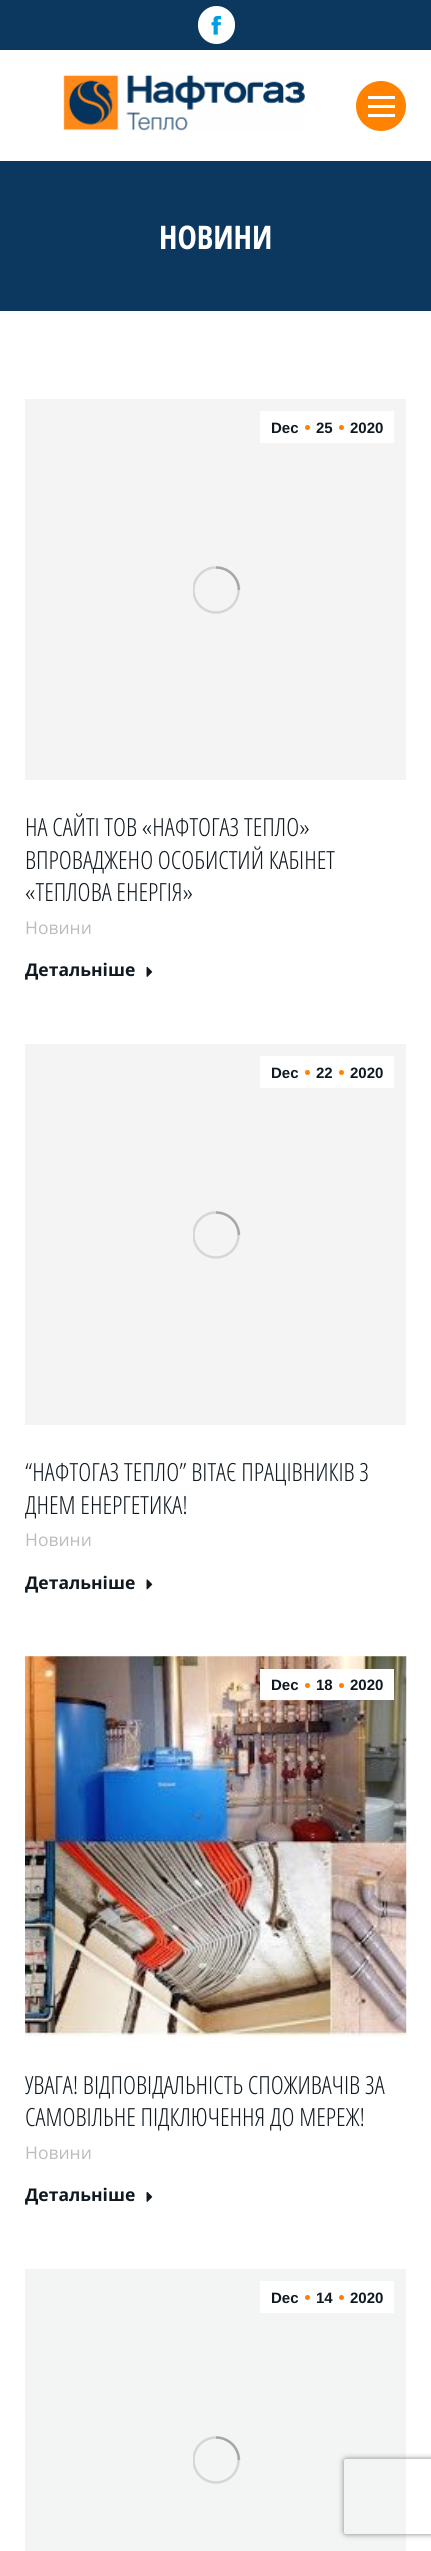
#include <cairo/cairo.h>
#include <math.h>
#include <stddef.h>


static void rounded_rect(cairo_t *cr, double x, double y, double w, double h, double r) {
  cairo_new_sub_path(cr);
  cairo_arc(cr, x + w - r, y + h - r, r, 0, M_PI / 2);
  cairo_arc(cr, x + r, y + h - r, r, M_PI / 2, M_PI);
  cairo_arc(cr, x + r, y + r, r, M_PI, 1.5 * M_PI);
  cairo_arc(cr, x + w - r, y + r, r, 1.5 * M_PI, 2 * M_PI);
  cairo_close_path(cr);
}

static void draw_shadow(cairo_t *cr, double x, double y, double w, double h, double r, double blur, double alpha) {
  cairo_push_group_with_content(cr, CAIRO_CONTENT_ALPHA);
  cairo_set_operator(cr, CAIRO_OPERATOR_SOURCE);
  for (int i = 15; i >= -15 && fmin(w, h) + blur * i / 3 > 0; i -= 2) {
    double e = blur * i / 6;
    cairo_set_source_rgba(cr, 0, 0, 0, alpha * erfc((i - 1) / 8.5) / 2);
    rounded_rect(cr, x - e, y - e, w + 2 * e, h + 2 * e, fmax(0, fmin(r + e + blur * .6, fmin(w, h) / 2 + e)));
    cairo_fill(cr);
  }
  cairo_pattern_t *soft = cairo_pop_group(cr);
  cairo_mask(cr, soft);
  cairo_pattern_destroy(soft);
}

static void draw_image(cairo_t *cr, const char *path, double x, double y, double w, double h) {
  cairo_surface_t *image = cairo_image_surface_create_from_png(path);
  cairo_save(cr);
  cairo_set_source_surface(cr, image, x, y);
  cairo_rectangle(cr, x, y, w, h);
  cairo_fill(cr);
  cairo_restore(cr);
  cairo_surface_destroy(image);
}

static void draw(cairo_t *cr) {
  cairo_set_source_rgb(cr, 1, 1, 1);
  cairo_paint(cr);
  cairo_set_source_rgb(cr, 12 / 255.0, 55 / 255.0, 94 / 255.0);
  cairo_rectangle(cr, 0, 0, 431, 50);
  cairo_fill(cr);
  cairo_set_source_rgb(cr, 1, 1, 1);
  rounded_rect(cr, 198, 6, 37, 38, 18.5);
  cairo_fill(cr);
  draw_image(cr, "images/1.png", 211, 15, 10, 20);
  draw_image(cr, "images/2.png", 63, 74, 242, 57);
  cairo_set_source_rgb(cr, 1, 130 / 255.0, 0);
  cairo_arc(cr, 381, 106, 25, 0, 2 * M_PI);
  cairo_fill(cr);
  cairo_set_source_rgb(cr, 1, 1, 1);
  cairo_rectangle(cr, 368, 96, 27, 3);
  cairo_fill(cr);
  cairo_rectangle(cr, 368, 105, 27, 3);
  cairo_fill(cr);
  cairo_rectangle(cr, 368, 114, 27, 3);
  cairo_fill(cr);
  cairo_set_source_rgb(cr, 12 / 255.0, 55 / 255.0, 94 / 255.0);
  cairo_rectangle(cr, 0, 161, 431, 150);
  cairo_fill(cr);
  cairo_set_source_rgb(cr, 244 / 255.0, 244 / 255.0, 244 / 255.0);
  cairo_rectangle(cr, 25, 399, 381, 381);
  cairo_fill(cr);
  cairo_save(cr);
  cairo_rectangle(cr, 193, 566, 47, 48);
  cairo_clip(cr);
  cairo_arc(cr, 216, 590, 22.5, 0, 2 * M_PI);
  cairo_set_source_rgb(cr, 213 / 255.0, 214 / 255.0, 215 / 255.0);
  cairo_set_line_width(cr, 2.5);
  cairo_stroke(cr);
  cairo_restore(cr);
  cairo_new_path(cr);
  cairo_move_to(cr, 239, 590);
  cairo_curve_to(cr, 239, 577.5, 228.5, 567.5, 216, 567.5);
  cairo_set_source_rgba(cr, 16 / 255.0, 24 / 255.0, 32 / 255.0, 0.25);
  cairo_set_line_width(cr, 2.5);
  cairo_stroke(cr);
  cairo_set_source_rgb(cr, 1, 1, 1);
  cairo_rectangle(cr, 260, 411, 134, 32);
  cairo_fill(cr);
  cairo_set_source_rgb(cr, 1, 130 / 255.0, 0);
  cairo_arc(cr, 307.5, 427.5, 2.5, 0, 2 * M_PI);
  cairo_fill(cr);
  cairo_arc(cr, 341.5, 427.5, 2.5, 0, 2 * M_PI);
  cairo_fill(cr);
  draw_image(cr, "images/3.png", 146, 966, 7, 11);
  cairo_set_source_rgb(cr, 244 / 255.0, 244 / 255.0, 244 / 255.0);
  cairo_rectangle(cr, 25, 1044, 381, 381);
  cairo_fill(cr);
  cairo_save(cr);
  cairo_rectangle(cr, 193, 1211, 47, 48);
  cairo_clip(cr);
  cairo_arc(cr, 216, 1235, 22.5, 0, 2 * M_PI);
  cairo_set_source_rgb(cr, 213 / 255.0, 214 / 255.0, 215 / 255.0);
  cairo_stroke(cr);
  cairo_restore(cr);
  cairo_new_path(cr);
  cairo_move_to(cr, 239, 1235);
  cairo_curve_to(cr, 239, 1222.5, 228.5, 1212.5, 216, 1212.5);
  cairo_set_source_rgba(cr, 16 / 255.0, 24 / 255.0, 32 / 255.0, 0.25);
  cairo_stroke(cr);
  cairo_set_source_rgb(cr, 1, 1, 1);
  cairo_rectangle(cr, 260, 1056, 134, 32);
  cairo_fill(cr);
  cairo_set_source_rgb(cr, 1, 130 / 255.0, 0);
  cairo_arc(cr, 307.5, 1072.5, 2.5, 0, 2 * M_PI);
  cairo_fill(cr);
  cairo_arc(cr, 341.5, 1072.5, 2.5, 0, 2 * M_PI);
  cairo_fill(cr);
  draw_image(cr, "images/4.png", 146, 1579, 7, 11);
  draw_image(cr, "images/5.png", 25, 1656, 382, 382);
  cairo_set_source_rgb(cr, 1, 1, 1);
  cairo_rectangle(cr, 260, 1669, 134, 31);
  cairo_fill(cr);
  cairo_set_source_rgb(cr, 1, 130 / 255.0, 0);
  cairo_arc(cr, 307.5, 1685.5, 2.5, 0, 2 * M_PI);
  cairo_fill(cr);
  cairo_arc(cr, 341.5, 1685.5, 2.5, 0, 2 * M_PI);
  cairo_fill(cr);
  draw_image(cr, "images/3.png", 146, 2191, 7, 11);
  cairo_set_source_rgb(cr, 243 / 255.0, 244 / 255.0, 244 / 255.0);
  cairo_rectangle(cr, 25, 2269, 381, 282);
  cairo_fill(cr);
  cairo_save(cr);
  cairo_rectangle(cr, 193, 2436, 47, 48);
  cairo_clip(cr);
  cairo_arc(cr, 216, 2460, 22.5, 0, 2 * M_PI);
  cairo_set_source_rgb(cr, 212 / 255.0, 214 / 255.0, 215 / 255.0);
  cairo_stroke(cr);
  cairo_restore(cr);
  cairo_new_path(cr);
  cairo_move_to(cr, 239, 2460);
  cairo_curve_to(cr, 239, 2447.5, 228.5, 2437.5, 216, 2437.5);
  cairo_set_source_rgba(cr, 16 / 255.0, 24 / 255.0, 32 / 255.0, 0.25);
  cairo_stroke(cr);
  cairo_set_source_rgb(cr, 1, 1, 1);
  cairo_rectangle(cr, 260, 2281, 134, 32);
  cairo_fill(cr);
  cairo_set_source_rgb(cr, 1, 130 / 255.0, 0);
  cairo_arc(cr, 307.5, 2297.5, 2.5, 0, 2 * M_PI);
  cairo_fill(cr);
  cairo_arc(cr, 341.5, 2297.5, 2.5, 0, 2 * M_PI);
  cairo_fill(cr);
  cairo_save(cr);
  cairo_set_fill_rule(cr, CAIRO_FILL_RULE_EVEN_ODD);
  cairo_new_path(cr);
  cairo_move_to(cr, 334, 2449);
  cairo_line_to(cr, 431, 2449);
  cairo_line_to(cr, 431, 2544);
  cairo_line_to(cr, 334, 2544);
  cairo_close_path(cr);
  cairo_move_to(cr, 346.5, 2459);
  cairo_line_to(cr, 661.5, 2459);
  cairo_curve_to(cr, 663, 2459, 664, 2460, 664, 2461.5);
  cairo_line_to(cr, 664, 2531.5);
  cairo_curve_to(cr, 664, 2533, 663, 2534, 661.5, 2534);
  cairo_line_to(cr, 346.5, 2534);
  cairo_curve_to(cr, 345, 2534, 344, 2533, 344, 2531.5);
  cairo_line_to(cr, 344, 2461.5);
  cairo_curve_to(cr, 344, 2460, 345, 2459, 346.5, 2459);
  cairo_close_path(cr);
  cairo_clip(cr);
  cairo_set_source_rgb(cr, 128 / 255.0, 128 / 255.0, 128 / 255.0);
  draw_shadow(cr, 344, 2459, 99, 75, 2.5, 3, 1);
  cairo_restore(cr);
  cairo_select_font_face(cr, "Open Sans Condensed", CAIRO_FONT_SLANT_NORMAL, CAIRO_FONT_WEIGHT_BOLD);
  cairo_set_font_size(cr, 32.5);
  cairo_set_source_rgb(cr, 1, 1, 1);
  cairo_move_to(cr, 159, 249);
  cairo_show_text(cr, "НОВИНИ");
  cairo_select_font_face(cr, "Liberation Sans", CAIRO_FONT_SLANT_NORMAL, CAIRO_FONT_WEIGHT_BOLD);
  cairo_set_font_size(cr, 15);
  cairo_set_source_rgb(cr, 16 / 255.0, 24 / 255.0, 32 / 255.0);
  cairo_move_to(cr, 271, 433);
  cairo_show_text(cr, "Dec");
  cairo_move_to(cr, 316, 433);
  cairo_show_text(cr, "25");
  cairo_move_to(cr, 350, 433);
  cairo_show_text(cr, "2020");
  cairo_select_font_face(cr, "Open Sans Condensed Light", CAIRO_FONT_SLANT_NORMAL, CAIRO_FONT_WEIGHT_NORMAL);
  cairo_set_font_size(cr, 25);
  cairo_move_to(cr, 25, 836);
  cairo_show_text(cr, "НА САЙТІ ТОВ «НАФТОГАЗ ТЕПЛО»");
  cairo_move_to(cr, 25, 869);
  cairo_show_text(cr, "ВПРОВАДЖЕНО ОСОБИСТИЙ КАБІНЕТ");
  cairo_move_to(cr, 25, 901);
  cairo_show_text(cr, "«ТЕПЛОВА ЕНЕРГІЯ»");
  cairo_select_font_face(cr, "Open Sans", CAIRO_FONT_SLANT_NORMAL, CAIRO_FONT_WEIGHT_NORMAL);
  cairo_set_font_size(cr, 17.5);
  cairo_set_source_rgb(cr, 187 / 255.0, 188 / 255.0, 188 / 255.0);
  cairo_move_to(cr, 25, 934);
  cairo_show_text(cr, "Новини");
  cairo_select_font_face(cr, "Open Sans", CAIRO_FONT_SLANT_NORMAL, CAIRO_FONT_WEIGHT_BOLD);
  cairo_set_source_rgb(cr, 16 / 255.0, 24 / 255.0, 32 / 255.0);
  cairo_move_to(cr, 25, 976);
  cairo_show_text(cr, "Детальніше");
  cairo_select_font_face(cr, "Liberation Sans", CAIRO_FONT_SLANT_NORMAL, CAIRO_FONT_WEIGHT_BOLD);
  cairo_set_font_size(cr, 15);
  cairo_move_to(cr, 271, 1078);
  cairo_show_text(cr, "Dec");
  cairo_move_to(cr, 316, 1078);
  cairo_show_text(cr, "22");
  cairo_move_to(cr, 350, 1078);
  cairo_show_text(cr, "2020");
  cairo_select_font_face(cr, "Open Sans Condensed Light", CAIRO_FONT_SLANT_NORMAL, CAIRO_FONT_WEIGHT_NORMAL);
  cairo_set_font_size(cr, 25);
  cairo_move_to(cr, 25, 1481);
  cairo_show_text(cr, "“НАФТОГАЗ ТЕПЛО” ВІТАЄ ПРАЦІВНИКІВ З");
  cairo_move_to(cr, 25, 1514);
  cairo_show_text(cr, "ДНЕМ ЕНЕРГЕТИКА!");
  cairo_select_font_face(cr, "Open Sans", CAIRO_FONT_SLANT_NORMAL, CAIRO_FONT_WEIGHT_NORMAL);
  cairo_set_font_size(cr, 17.5);
  cairo_set_source_rgb(cr, 187 / 255.0, 188 / 255.0, 188 / 255.0);
  cairo_move_to(cr, 25, 1546);
  cairo_show_text(cr, "Новини");
  cairo_select_font_face(cr, "Open Sans", CAIRO_FONT_SLANT_NORMAL, CAIRO_FONT_WEIGHT_BOLD);
  cairo_set_source_rgb(cr, 16 / 255.0, 24 / 255.0, 32 / 255.0);
  cairo_move_to(cr, 25, 1589);
  cairo_show_text(cr, "Детальніше");
  cairo_select_font_face(cr, "Liberation Sans", CAIRO_FONT_SLANT_NORMAL, CAIRO_FONT_WEIGHT_BOLD);
  cairo_set_font_size(cr, 15);
  cairo_move_to(cr, 271, 1690);
  cairo_show_text(cr, "Dec");
  cairo_move_to(cr, 316, 1690);
  cairo_show_text(cr, "18");
  cairo_move_to(cr, 350, 1690);
  cairo_show_text(cr, "2020");
  cairo_select_font_face(cr, "Open Sans Condensed Light", CAIRO_FONT_SLANT_NORMAL, CAIRO_FONT_WEIGHT_NORMAL);
  cairo_set_font_size(cr, 25);
  cairo_move_to(cr, 25, 2094);
  cairo_show_text(cr, "УВАГА! ВІДПОВІДАЛЬНІСТЬ СПОЖИВАЧІВ ЗА");
  cairo_move_to(cr, 25, 2126);
  cairo_show_text(cr, "САМОВІЛЬНЕ ПІДКЛЮЧЕННЯ ДО МЕРЕЖ!");
  cairo_select_font_face(cr, "Open Sans", CAIRO_FONT_SLANT_NORMAL, CAIRO_FONT_WEIGHT_NORMAL);
  cairo_set_font_size(cr, 17.5);
  cairo_set_source_rgb(cr, 187 / 255.0, 188 / 255.0, 188 / 255.0);
  cairo_move_to(cr, 25, 2159);
  cairo_show_text(cr, "Новини");
  cairo_select_font_face(cr, "Open Sans", CAIRO_FONT_SLANT_NORMAL, CAIRO_FONT_WEIGHT_BOLD);
  cairo_set_source_rgb(cr, 16 / 255.0, 24 / 255.0, 32 / 255.0);
  cairo_move_to(cr, 25, 2201);
  cairo_show_text(cr, "Детальніше");
  cairo_select_font_face(cr, "Liberation Sans", CAIRO_FONT_SLANT_NORMAL, CAIRO_FONT_WEIGHT_BOLD);
  cairo_set_font_size(cr, 15);
  cairo_move_to(cr, 271, 2303);
  cairo_show_text(cr, "Dec");
  cairo_move_to(cr, 316, 2303);
  cairo_show_text(cr, "14");
  cairo_move_to(cr, 350, 2303);
  cairo_show_text(cr, "2020");
}

int main(void) {
  cairo_surface_t *surface = cairo_image_surface_create(CAIRO_FORMAT_RGB24, 431, 2551);
  cairo_t *cr = cairo_create(surface);
  cairo_font_options_t *options = cairo_font_options_create();
  cairo_font_options_set_hint_metrics(options, CAIRO_HINT_METRICS_OFF);
  cairo_font_options_set_hint_style(options, CAIRO_HINT_STYLE_NONE);
  cairo_set_font_options(cr, options);
  cairo_set_miter_limit(cr, 4);
  draw(cr);
  cairo_surface_write_to_png(surface, "out.png");
  cairo_font_options_destroy(options);
  cairo_destroy(cr);
  cairo_surface_destroy(surface);
  return 0;
}
